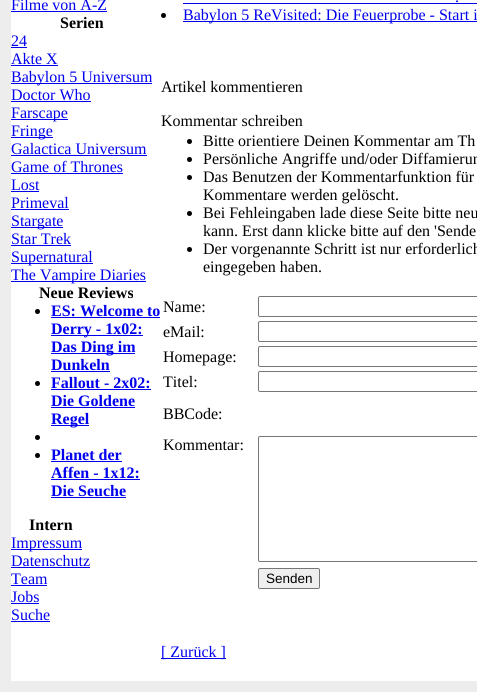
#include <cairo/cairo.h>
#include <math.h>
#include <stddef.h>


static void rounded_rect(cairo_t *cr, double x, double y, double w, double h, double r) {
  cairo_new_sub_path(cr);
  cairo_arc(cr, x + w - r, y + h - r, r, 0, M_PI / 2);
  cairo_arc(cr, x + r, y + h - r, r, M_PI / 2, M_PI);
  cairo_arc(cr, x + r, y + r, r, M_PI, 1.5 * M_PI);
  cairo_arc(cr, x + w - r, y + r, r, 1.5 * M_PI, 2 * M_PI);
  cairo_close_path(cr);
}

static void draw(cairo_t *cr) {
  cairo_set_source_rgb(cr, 237 / 255.0, 237 / 255.0, 237 / 255.0);
  cairo_paint(cr);
  cairo_set_source_rgb(cr, 1, 1, 1);
  cairo_rectangle(cr, 11, 0, 466, 681);
  cairo_fill(cr);
  cairo_set_source_rgb(cr, 0, 0, 238 / 255.0);
  cairo_rectangle(cr, 11, 11, 96, 1);
  cairo_fill(cr);
  cairo_rectangle(cr, 11, 47, 16, 1);
  cairo_fill(cr);
  cairo_rectangle(cr, 11, 65, 47, 1);
  cairo_fill(cr);
  cairo_rectangle(cr, 11, 83, 141, 1);
  cairo_fill(cr);
  cairo_rectangle(cr, 11, 101, 80, 1);
  cairo_fill(cr);
  cairo_rectangle(cr, 11, 119, 57, 1);
  cairo_fill(cr);
  cairo_rectangle(cr, 11, 137, 42, 1);
  cairo_fill(cr);
  cairo_rectangle(cr, 11, 155, 136, 1);
  cairo_fill(cr);
  cairo_rectangle(cr, 11, 173, 112, 1);
  cairo_fill(cr);
  cairo_rectangle(cr, 11, 191, 28, 1);
  cairo_fill(cr);
  cairo_rectangle(cr, 11, 209, 58, 1);
  cairo_fill(cr);
  cairo_rectangle(cr, 11, 227, 52, 1);
  cairo_fill(cr);
  cairo_rectangle(cr, 11, 245, 60, 1);
  cairo_fill(cr);
  cairo_rectangle(cr, 11, 263, 82, 1);
  cairo_fill(cr);
  cairo_rectangle(cr, 11, 281, 135, 1);
  cairo_fill(cr);
  cairo_set_source_rgb(cr, 0, 0, 0);
  cairo_arc(cr, 37.5, 311.5, 2.5, 0, 2 * M_PI);
  cairo_fill(cr);
  cairo_set_source_rgb(cr, 0, 0, 238 / 255.0);
  cairo_rectangle(cr, 51, 317, 109, 1);
  cairo_fill(cr);
  cairo_rectangle(cr, 51, 335, 92, 1);
  cairo_fill(cr);
  cairo_rectangle(cr, 51, 353, 84, 1);
  cairo_fill(cr);
  cairo_rectangle(cr, 51, 371, 59, 1);
  cairo_fill(cr);
  cairo_set_source_rgb(cr, 0, 0, 0);
  cairo_arc(cr, 37.5, 383.5, 2.5, 0, 2 * M_PI);
  cairo_fill(cr);
  cairo_set_source_rgb(cr, 0, 0, 238 / 255.0);
  cairo_rectangle(cr, 51, 389, 100, 1);
  cairo_fill(cr);
  cairo_rectangle(cr, 51, 407, 84, 1);
  cairo_fill(cr);
  cairo_rectangle(cr, 51, 425, 38, 1);
  cairo_fill(cr);
  cairo_set_source_rgb(cr, 0, 0, 0);
  cairo_arc(cr, 37.5, 437.5, 2.5, 0, 2 * M_PI);
  cairo_fill(cr);
  cairo_arc(cr, 37.5, 455.5, 2.5, 0, 2 * M_PI);
  cairo_fill(cr);
  cairo_set_source_rgb(cr, 0, 0, 238 / 255.0);
  cairo_rectangle(cr, 51, 461, 71, 1);
  cairo_fill(cr);
  cairo_rectangle(cr, 51, 479, 89, 1);
  cairo_fill(cr);
  cairo_rectangle(cr, 51, 497, 75, 1);
  cairo_fill(cr);
  cairo_rectangle(cr, 11, 549, 71, 1);
  cairo_fill(cr);
  cairo_rectangle(cr, 11, 567, 79, 1);
  cairo_fill(cr);
  cairo_rectangle(cr, 11, 585, 36, 1);
  cairo_fill(cr);
  cairo_rectangle(cr, 11, 603, 28, 1);
  cairo_fill(cr);
  cairo_rectangle(cr, 11, 621, 39, 1);
  cairo_fill(cr);
  cairo_rectangle(cr, 183, 3, 294, 1);
  cairo_fill(cr);
  cairo_set_source_rgb(cr, 0, 0, 0);
  cairo_arc(cr, 163.5, 15.5, 2.5, 0, 2 * M_PI);
  cairo_fill(cr);
  cairo_set_source_rgb(cr, 0, 0, 238 / 255.0);
  cairo_rectangle(cr, 183, 21, 294, 1);
  cairo_fill(cr);
  cairo_set_source_rgb(cr, 0, 0, 0);
  cairo_arc(cr, 189.5, 141.5, 2.5, 0, 2 * M_PI);
  cairo_fill(cr);
  cairo_arc(cr, 189.5, 159.5, 2.5, 0, 2 * M_PI);
  cairo_fill(cr);
  cairo_arc(cr, 189.5, 177.5, 2.5, 0, 2 * M_PI);
  cairo_fill(cr);
  cairo_arc(cr, 189.5, 213.5, 2.5, 0, 2 * M_PI);
  cairo_fill(cr);
  cairo_arc(cr, 189.5, 249.5, 2.5, 0, 2 * M_PI);
  cairo_fill(cr);
  rounded_rect(cr, 258.5, 296.5, 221, 20, 1.5);
  cairo_set_source_rgb(cr, 118 / 255.0, 118 / 255.0, 118 / 255.0);
  cairo_set_line_width(cr, 1);
  cairo_stroke(cr);
  rounded_rect(cr, 258.5, 321.5, 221, 20, 1.5);
  cairo_stroke(cr);
  rounded_rect(cr, 258.5, 346.5, 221, 20, 1.5);
  cairo_stroke(cr);
  rounded_rect(cr, 258.5, 371.5, 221, 20, 1.5);
  cairo_stroke(cr);
  rounded_rect(cr, 258.5, 436.5, 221, 125, 1.5);
  cairo_stroke(cr);
  cairo_set_source_rgb(cr, 239 / 255.0, 239 / 255.0, 239 / 255.0);
  rounded_rect(cr, 258.5, 568.5, 61, 20, 1.5);
  cairo_fill_preserve(cr);
  cairo_set_source_rgb(cr, 118 / 255.0, 118 / 255.0, 118 / 255.0);
  cairo_stroke(cr);
  cairo_set_source_rgb(cr, 0, 0, 238 / 255.0);
  cairo_rectangle(cr, 161, 658, 65, 1);
  cairo_fill(cr);
  cairo_select_font_face(cr, "Liberation Serif", CAIRO_FONT_SLANT_NORMAL, CAIRO_FONT_WEIGHT_NORMAL);
  cairo_set_font_size(cr, 16);
  cairo_move_to(cr, 11, 10);
  cairo_show_text(cr, "Filme von A-Z");
  cairo_select_font_face(cr, "Liberation Serif", CAIRO_FONT_SLANT_NORMAL, CAIRO_FONT_WEIGHT_BOLD);
  cairo_set_source_rgb(cr, 0, 0, 0);
  cairo_move_to(cr, 60, 28);
  cairo_show_text(cr, "Serien");
  cairo_select_font_face(cr, "Liberation Serif", CAIRO_FONT_SLANT_NORMAL, CAIRO_FONT_WEIGHT_NORMAL);
  cairo_set_source_rgb(cr, 0, 0, 238 / 255.0);
  cairo_move_to(cr, 11, 46);
  cairo_show_text(cr, "24");
  cairo_move_to(cr, 11, 64);
  cairo_show_text(cr, "Akte X");
  cairo_move_to(cr, 11, 82);
  cairo_show_text(cr, "Babylon 5 Universum");
  cairo_move_to(cr, 11, 100);
  cairo_show_text(cr, "Doctor Who");
  cairo_move_to(cr, 11, 118);
  cairo_show_text(cr, "Farscape");
  cairo_move_to(cr, 11, 136);
  cairo_show_text(cr, "Fringe");
  cairo_move_to(cr, 11, 154);
  cairo_show_text(cr, "Galactica Universum");
  cairo_move_to(cr, 11, 172);
  cairo_show_text(cr, "Game of Thrones");
  cairo_move_to(cr, 11, 190);
  cairo_show_text(cr, "Lost");
  cairo_move_to(cr, 11, 208);
  cairo_show_text(cr, "Primeval");
  cairo_move_to(cr, 11, 226);
  cairo_show_text(cr, "Stargate");
  cairo_move_to(cr, 11, 244);
  cairo_show_text(cr, "Star Trek");
  cairo_move_to(cr, 11, 262);
  cairo_show_text(cr, "Supernatural");
  cairo_move_to(cr, 11, 280);
  cairo_show_text(cr, "The Vampire Diaries");
  cairo_select_font_face(cr, "Liberation Serif", CAIRO_FONT_SLANT_NORMAL, CAIRO_FONT_WEIGHT_BOLD);
  cairo_set_source_rgb(cr, 0, 0, 0);
  cairo_move_to(cr, 39, 298);
  cairo_show_text(cr, "Neue Reviews");
  cairo_set_source_rgb(cr, 0, 0, 238 / 255.0);
  cairo_move_to(cr, 51, 316);
  cairo_show_text(cr, "ES: Welcome to");
  cairo_move_to(cr, 51, 334);
  cairo_show_text(cr, "Derry - 1x02:");
  cairo_move_to(cr, 51, 352);
  cairo_show_text(cr, "Das Ding im");
  cairo_move_to(cr, 51, 370);
  cairo_show_text(cr, "Dunkeln");
  cairo_move_to(cr, 51, 388);
  cairo_show_text(cr, "Fallout - 2x02:");
  cairo_move_to(cr, 51, 406);
  cairo_show_text(cr, "Die Goldene");
  cairo_move_to(cr, 51, 424);
  cairo_show_text(cr, "Regel");
  cairo_move_to(cr, 51, 460);
  cairo_show_text(cr, "Planet der");
  cairo_move_to(cr, 51, 478);
  cairo_show_text(cr, "Affen - 1x12:");
  cairo_move_to(cr, 51, 496);
  cairo_show_text(cr, "Die Seuche");
  cairo_set_source_rgb(cr, 0, 0, 0);
  cairo_move_to(cr, 29, 530);
  cairo_show_text(cr, "Intern");
  cairo_select_font_face(cr, "Liberation Serif", CAIRO_FONT_SLANT_NORMAL, CAIRO_FONT_WEIGHT_NORMAL);
  cairo_set_source_rgb(cr, 0, 0, 238 / 255.0);
  cairo_move_to(cr, 11, 548);
  cairo_show_text(cr, "Impressum");
  cairo_move_to(cr, 11, 566);
  cairo_show_text(cr, "Datenschutz");
  cairo_move_to(cr, 11, 584);
  cairo_show_text(cr, "Team");
  cairo_move_to(cr, 11, 602);
  cairo_show_text(cr, "Jobs");
  cairo_move_to(cr, 11, 620);
  cairo_show_text(cr, "Suche");
  cairo_move_to(cr, 455, 2);
  cairo_show_text(cr, ".");
  cairo_move_to(cr, 183, 20);
  cairo_show_text(cr, "Babylon 5 ReVisited: Die Feuerprobe - Start i");
  cairo_set_source_rgb(cr, 0, 0, 0);
  cairo_move_to(cr, 161, 92);
  cairo_show_text(cr, "Artikel kommentieren");
  cairo_move_to(cr, 161, 126);
  cairo_show_text(cr, "Kommentar schreiben");
  cairo_move_to(cr, 203, 146);
  cairo_show_text(cr, "Bitte orientiere Deinen Kommentar am Th");
  cairo_move_to(cr, 203, 164);
  cairo_show_text(cr, "Persönliche Angriffe und/oder Diffamierun");
  cairo_move_to(cr, 203, 182);
  cairo_show_text(cr, "Das Benutzen der Kommentarfunktion für");
  cairo_move_to(cr, 203, 200);
  cairo_show_text(cr, "Kommentare werden gelöscht.");
  cairo_move_to(cr, 203, 218);
  cairo_show_text(cr, "Bei Fehleingaben lade diese Seite bitte neu");
  cairo_move_to(cr, 203, 236);
  cairo_show_text(cr, "kann. Erst dann klicke bitte auf den 'Sende");
  cairo_move_to(cr, 203, 254);
  cairo_show_text(cr, "Der vorgenannte Schritt ist nur erforderlich");
  cairo_move_to(cr, 203, 272);
  cairo_show_text(cr, "eingegeben haben.");
  cairo_move_to(cr, 163, 312);
  cairo_show_text(cr, "Name:");
  cairo_move_to(cr, 163, 337);
  cairo_show_text(cr, "eMail:");
  cairo_move_to(cr, 163, 362);
  cairo_show_text(cr, "Homepage:");
  cairo_move_to(cr, 163, 387);
  cairo_show_text(cr, "Titel:");
  cairo_move_to(cr, 163, 419);
  cairo_show_text(cr, "BBCode:");
  cairo_move_to(cr, 163, 450);
  cairo_show_text(cr, "Kommentar:");
  cairo_select_font_face(cr, "Liberation Sans", CAIRO_FONT_SLANT_NORMAL, CAIRO_FONT_WEIGHT_NORMAL);
  cairo_set_font_size(cr, 13.5);
  cairo_move_to(cr, 266, 583);
  cairo_show_text(cr, "Senden");
  cairo_select_font_face(cr, "Liberation Serif", CAIRO_FONT_SLANT_NORMAL, CAIRO_FONT_WEIGHT_NORMAL);
  cairo_set_font_size(cr, 16);
  cairo_set_source_rgb(cr, 0, 0, 238 / 255.0);
  cairo_move_to(cr, 161, 657);
  cairo_show_text(cr, "[ Zurück ]");
}

int main(void) {
  cairo_surface_t *surface = cairo_image_surface_create(CAIRO_FORMAT_RGB24, 477, 692);
  cairo_t *cr = cairo_create(surface);
  cairo_font_options_t *options = cairo_font_options_create();
  cairo_font_options_set_hint_metrics(options, CAIRO_HINT_METRICS_OFF);
  cairo_font_options_set_hint_style(options, CAIRO_HINT_STYLE_NONE);
  cairo_set_font_options(cr, options);
  cairo_set_miter_limit(cr, 4);
  draw(cr);
  cairo_surface_write_to_png(surface, "out.png");
  cairo_font_options_destroy(options);
  cairo_destroy(cr);
  cairo_surface_destroy(surface);
  return 0;
}
